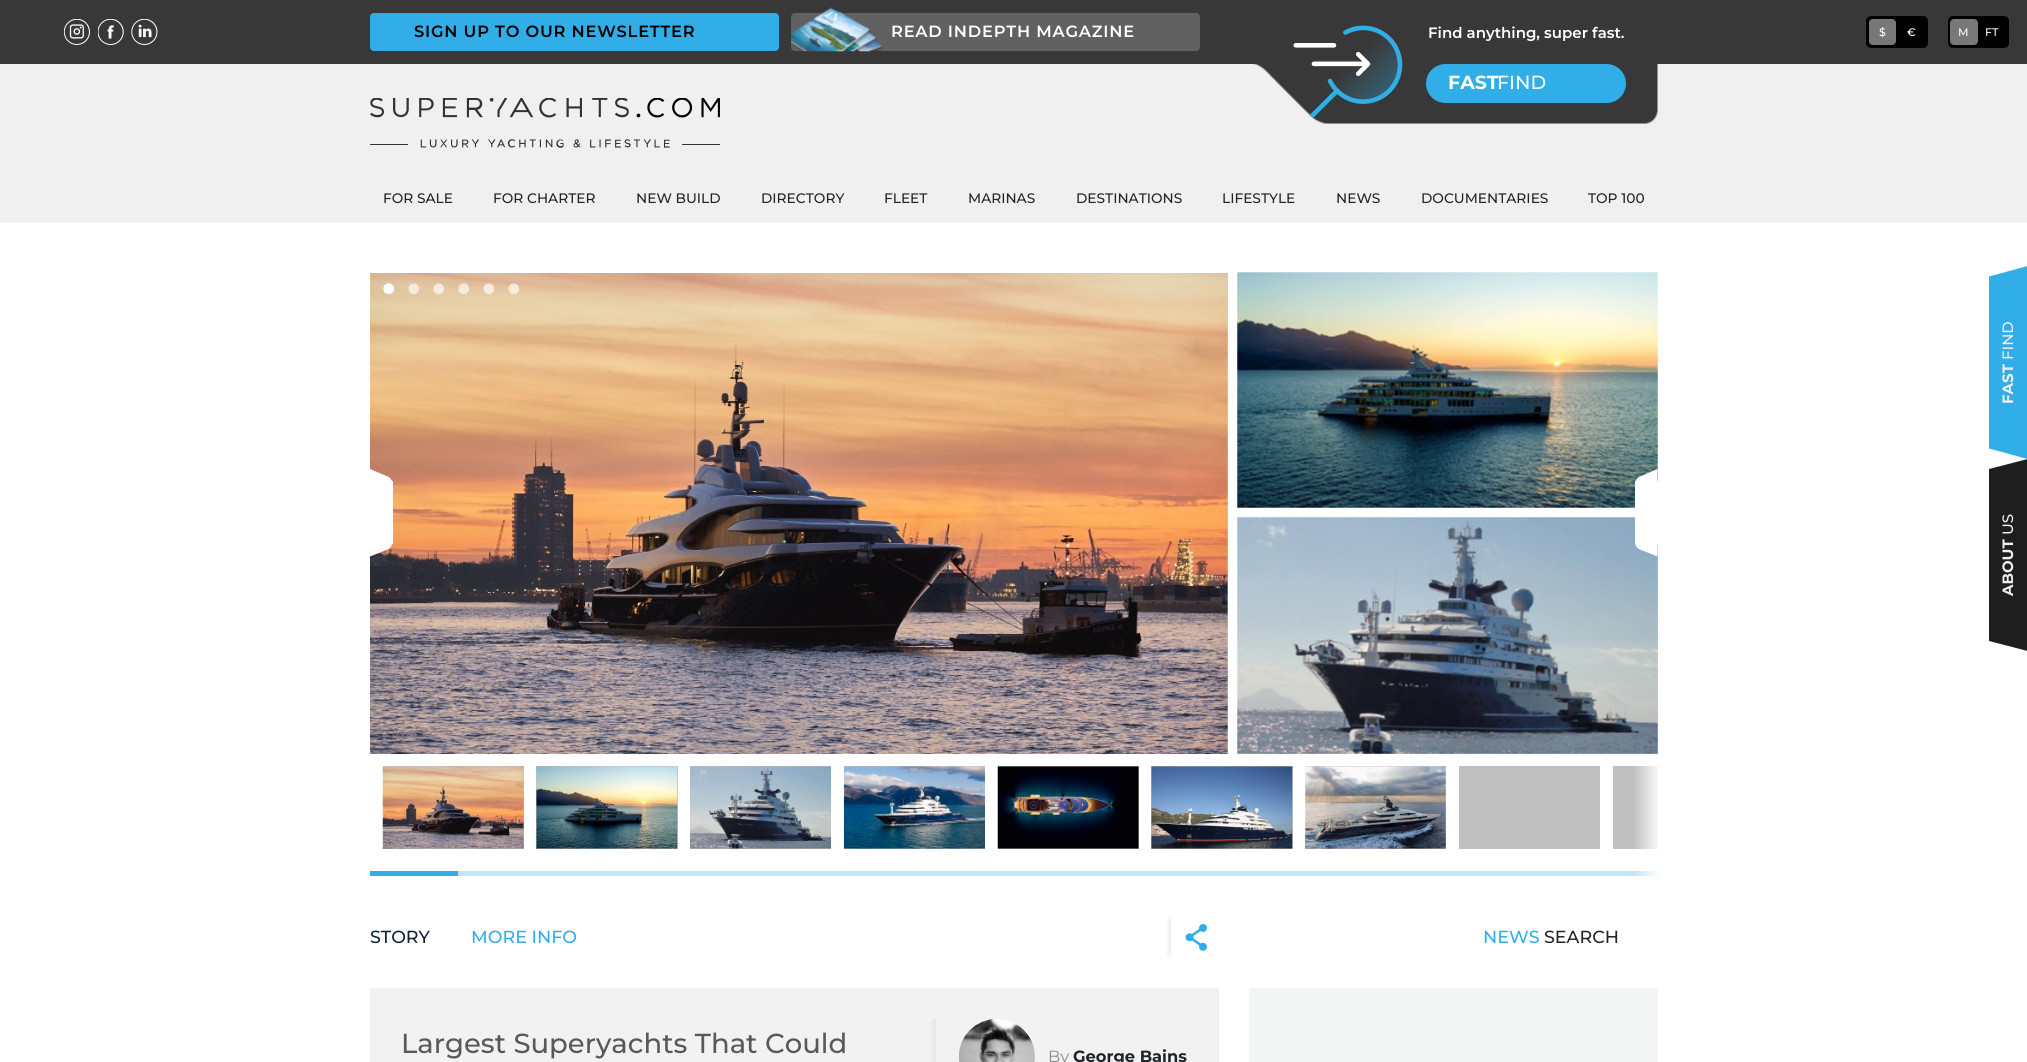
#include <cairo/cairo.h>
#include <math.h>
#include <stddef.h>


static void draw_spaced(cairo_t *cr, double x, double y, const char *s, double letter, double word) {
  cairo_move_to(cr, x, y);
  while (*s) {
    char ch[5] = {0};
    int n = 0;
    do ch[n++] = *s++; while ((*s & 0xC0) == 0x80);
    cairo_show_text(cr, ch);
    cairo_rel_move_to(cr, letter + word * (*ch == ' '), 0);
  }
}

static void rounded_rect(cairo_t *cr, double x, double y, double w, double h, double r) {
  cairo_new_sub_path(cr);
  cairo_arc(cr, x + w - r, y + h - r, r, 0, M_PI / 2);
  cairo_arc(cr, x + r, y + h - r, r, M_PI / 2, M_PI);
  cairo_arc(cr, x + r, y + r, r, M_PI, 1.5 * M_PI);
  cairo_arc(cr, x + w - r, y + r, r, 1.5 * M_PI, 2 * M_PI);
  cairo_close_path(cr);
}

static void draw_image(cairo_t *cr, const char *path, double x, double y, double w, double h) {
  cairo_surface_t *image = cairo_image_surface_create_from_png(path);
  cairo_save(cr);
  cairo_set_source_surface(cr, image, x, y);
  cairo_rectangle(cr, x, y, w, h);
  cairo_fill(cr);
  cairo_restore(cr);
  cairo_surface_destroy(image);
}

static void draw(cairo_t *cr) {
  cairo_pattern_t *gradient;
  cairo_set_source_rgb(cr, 1, 1, 1);
  cairo_paint(cr);
  cairo_set_source_rgb(cr, 240 / 255.0, 240 / 255.0, 240 / 255.0);
  cairo_rectangle(cr, 0, 64, 2027, 159);
  cairo_fill(cr);
  cairo_set_source_rgb(cr, 56 / 255.0, 56 / 255.0, 56 / 255.0);
  cairo_rectangle(cr, 0, 0, 2027, 64);
  cairo_fill(cr);
  draw_image(cr, "images/1.png", 64, 19, 26, 26);
  draw_image(cr, "images/2.png", 98, 19, 26, 26);
  draw_image(cr, "images/3.png", 131, 19, 27, 26);
  cairo_set_source_rgb(cr, 49 / 255.0, 173 / 255.0, 232 / 255.0);
  rounded_rect(cr, 370, 13, 409, 38, 4);
  cairo_fill(cr);
  cairo_set_source_rgb(cr, 97 / 255.0, 97 / 255.0, 97 / 255.0);
  rounded_rect(cr, 791, 13, 409, 38, 4);
  cairo_fill(cr);
  draw_image(cr, "images/4.png", 791, 7, 92, 45);
  draw_image(cr, "images/6.png", 1253, 64, 405, 60);
  draw_image(cr, "images/5.png", 1293, 25, 110, 93);
  cairo_set_source_rgb(cr, 49 / 255.0, 173 / 255.0, 232 / 255.0);
  rounded_rect(cr, 1426, 64, 200, 39, 19.5);
  cairo_fill(cr);
  cairo_set_source_rgb(cr, 0, 0, 0);
  rounded_rect(cr, 1867.5, 17.5, 59, 29, 3.5);
  cairo_fill_preserve(cr);
  cairo_set_line_width(cr, 3);
  cairo_stroke(cr);
  cairo_set_source_rgb(cr, 120 / 255.0, 120 / 255.0, 120 / 255.0);
  rounded_rect(cr, 1869, 19, 27, 26, 4);
  cairo_fill(cr);
  cairo_set_source_rgb(cr, 0, 0, 0);
  rounded_rect(cr, 1949.5, 17.5, 58, 29, 3.5);
  cairo_fill_preserve(cr);
  cairo_stroke(cr);
  cairo_set_source_rgb(cr, 120 / 255.0, 120 / 255.0, 120 / 255.0);
  rounded_rect(cr, 1950, 19, 28, 26, 4);
  cairo_fill(cr);
  draw_image(cr, "images/7.png", 370, 98, 350, 50);
  cairo_set_source_rgb(cr, 49 / 255.0, 173 / 255.0, 232 / 255.0);
  cairo_new_path(cr);
  cairo_move_to(cr, 1989, 301.5);
  cairo_line_to(cr, 1989, 276.5);
  cairo_line_to(cr, 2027.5, 266);
  cairo_line_to(cr, 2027.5, 291);
  cairo_close_path(cr);
  cairo_fill(cr);
  cairo_new_path(cr);
  cairo_move_to(cr, 1989, 448.5);
  cairo_line_to(cr, 1989, 423.5);
  cairo_line_to(cr, 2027.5, 434);
  cairo_line_to(cr, 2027.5, 459);
  cairo_close_path(cr);
  cairo_fill(cr);
  cairo_rectangle(cr, 1989, 291, 38, 143);
  cairo_fill(cr);
  cairo_set_source_rgb(cr, 30 / 255.0, 30 / 255.0, 30 / 255.0);
  cairo_new_path(cr);
  cairo_move_to(cr, 1989, 494);
  cairo_line_to(cr, 1989, 469);
  cairo_line_to(cr, 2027.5, 459);
  cairo_line_to(cr, 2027.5, 484);
  cairo_close_path(cr);
  cairo_fill(cr);
  cairo_new_path(cr);
  cairo_move_to(cr, 1989, 641);
  cairo_line_to(cr, 1989, 616);
  cairo_line_to(cr, 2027.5, 626);
  cairo_line_to(cr, 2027.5, 651);
  cairo_close_path(cr);
  cairo_fill(cr);
  cairo_rectangle(cr, 1989, 484, 38, 142);
  cairo_fill(cr);
  cairo_set_source_rgb(cr, 211 / 255.0, 211 / 255.0, 211 / 255.0);
  cairo_rectangle(cr, 370, 273, 858, 481);
  cairo_fill(cr);
  draw_image(cr, "images/8.png", 370, 273, 858, 481);
  draw_image(cr, "images/9.png", 370, 273, 858, 481);
  draw_image(cr, "images/10.png", 1237, 272, 421, 236);
  draw_image(cr, "images/11.png", 1237, 272, 421, 236);
  cairo_rectangle(cr, 1238, 544, 420, 210);
  cairo_fill(cr);
  draw_image(cr, "images/12.png", 1237, 517, 421, 237);
  draw_image(cr, "images/13.png", 1237, 517, 421, 237);
  draw_image(cr, "images/14.png", 383, 283, 12, 12);
  draw_image(cr, "images/15.png", 408, 283, 11, 11);
  draw_image(cr, "images/16.png", 433, 283, 11, 11);
  draw_image(cr, "images/17.png", 458, 283, 11, 11);
  draw_image(cr, "images/18.png", 483, 283, 11, 11);
  draw_image(cr, "images/19.png", 508, 283, 11, 11);
  cairo_set_source_rgb(cr, 1, 1, 1);
  cairo_rectangle(cr, 370, 481, 23, 63);
  cairo_fill(cr);
  cairo_new_path(cr);
  cairo_move_to(cr, 392.5, 491);
  cairo_line_to(cr, 370, 481.5);
  cairo_line_to(cr, 370, 469);
  cairo_line_to(cr, 387.5, 476.5);
  cairo_curve_to(cr, 390.5, 477.5, 392.5, 481, 392.5, 483.5);
  cairo_close_path(cr);
  cairo_fill(cr);
  cairo_new_path(cr);
  cairo_move_to(cr, 387.5, 549.5);
  cairo_line_to(cr, 370, 556.5);
  cairo_line_to(cr, 370, 544);
  cairo_line_to(cr, 392.5, 535);
  cairo_curve_to(cr, 392.5, 540, 393.5, 547, 387.5, 549.5);
  cairo_close_path(cr);
  cairo_fill(cr);
  cairo_rectangle(cr, 1635, 481, 23, 63);
  cairo_fill(cr);
  cairo_new_path(cr);
  cairo_move_to(cr, 1640, 476.5);
  cairo_line_to(cr, 1657.5, 469);
  cairo_line_to(cr, 1657.5, 481.5);
  cairo_line_to(cr, 1635, 491);
  cairo_curve_to(cr, 1635, 485.5, 1634, 479, 1640, 476.5);
  cairo_close_path(cr);
  cairo_fill(cr);
  cairo_new_path(cr);
  cairo_move_to(cr, 1635, 535);
  cairo_line_to(cr, 1657.5, 544);
  cairo_line_to(cr, 1657.5, 556.5);
  cairo_line_to(cr, 1640, 549.5);
  cairo_curve_to(cr, 1637, 548.5, 1635, 545, 1635, 542.5);
  cairo_close_path(cr);
  cairo_fill(cr);
  cairo_set_source_rgb(cr, 191 / 255.0, 191 / 255.0, 191 / 255.0);
  cairo_rectangle(cr, 383, 766, 141, 83);
  cairo_fill(cr);
  draw_image(cr, "images/20.png", 382, 766, 142, 83);
  cairo_rectangle(cr, 536, 766, 142, 83);
  cairo_fill(cr);
  draw_image(cr, "images/21.png", 536, 766, 142, 83);
  cairo_rectangle(cr, 690, 766, 141, 83);
  cairo_fill(cr);
  draw_image(cr, "images/22.png", 690, 766, 142, 83);
  cairo_rectangle(cr, 844, 766, 141, 83);
  cairo_fill(cr);
  draw_image(cr, "images/23.png", 843, 766, 142, 83);
  cairo_rectangle(cr, 998, 766, 141, 83);
  cairo_fill(cr);
  draw_image(cr, "images/24.png", 997, 766, 142, 83);
  cairo_rectangle(cr, 1151, 766, 142, 83);
  cairo_fill(cr);
  draw_image(cr, "images/25.png", 1151, 766, 142, 83);
  cairo_rectangle(cr, 1305, 766, 141, 83);
  cairo_fill(cr);
  draw_image(cr, "images/26.png", 1305, 766, 142, 83);
  cairo_rectangle(cr, 1459, 766, 141, 83);
  cairo_fill(cr);
  cairo_rectangle(cr, 1613, 766, 45, 83);
  cairo_fill(cr);
  cairo_set_source_rgb(cr, 193 / 255.0, 230 / 255.0, 248 / 255.0);
  cairo_rectangle(cr, 458, 871, 1200, 5);
  cairo_fill(cr);
  gradient = cairo_pattern_create_linear(1658, 820, 1633, 820);
  cairo_pattern_add_color_stop_rgba(gradient, 0, 1, 1, 1, 0.9);
  cairo_pattern_add_color_stop_rgba(gradient, 1, 1, 1, 1, 0);
  cairo_set_source(cr, gradient);
  cairo_pattern_destroy(gradient);
  cairo_rectangle(cr, 1634, 766, 24, 110);
  cairo_fill(cr);
  cairo_set_source_rgb(cr, 49 / 255.0, 173 / 255.0, 232 / 255.0);
  cairo_rectangle(cr, 370, 871, 88, 5);
  cairo_fill(cr);
  gradient = cairo_pattern_create_linear(1165, 938, 1171, 938);
  cairo_pattern_add_color_stop_rgba(gradient, 0, 1, 1, 1, 1);
  cairo_pattern_add_color_stop_rgba(gradient, 1, 237 / 255.0, 237 / 255.0, 237 / 255.0, 1);
  cairo_set_source(cr, gradient);
  cairo_pattern_destroy(gradient);
  cairo_rectangle(cr, 1166, 919, 5, 37);
  cairo_fill(cr);
  draw_image(cr, "images/27.png", 1185, 924, 22, 27);
  cairo_set_source_rgb(cr, 242 / 255.0, 242 / 255.0, 242 / 255.0);
  cairo_rectangle(cr, 370, 988, 849, 74);
  cairo_fill(cr);
  gradient = cairo_pattern_create_linear(928, 1061, 936, 1061);
  cairo_pattern_add_color_stop_rgba(gradient, 0, 242 / 255.0, 242 / 255.0, 242 / 255.0, 1);
  cairo_pattern_add_color_stop_rgba(gradient, 1, 231 / 255.0, 231 / 255.0, 232 / 255.0, 1);
  cairo_set_source(cr, gradient);
  cairo_pattern_destroy(gradient);
  cairo_rectangle(cr, 930, 1019, 6, 43);
  cairo_fill(cr);
  draw_image(cr, "images/28.png", 959, 1019, 76, 43);
  cairo_set_source_rgb(cr, 244 / 255.0, 245 / 255.0, 245 / 255.0);
  cairo_rectangle(cr, 1249, 988, 409, 74);
  cairo_fill(cr);
  cairo_select_font_face(cr, "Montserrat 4 Thin", CAIRO_FONT_SLANT_NORMAL, CAIRO_FONT_WEIGHT_NORMAL);
  cairo_set_font_size(cr, 16.25);
  cairo_set_source_rgb(cr, 0, 0, 0);
  draw_spaced(cr, 414, 37, "SIGN UP TO OUR NEWSLETTER", 0.8, 0);
  cairo_set_source_rgb(cr, 1, 1, 1);
  draw_spaced(cr, 891, 37, "READ INDEPTH MAGAZINE", 0.8, 0);
  cairo_set_font_size(cr, 15);
  cairo_move_to(cr, 1428, 38);
  cairo_show_text(cr, "Find anything, super fast.");
  cairo_select_font_face(cr, "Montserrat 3 Thin", CAIRO_FONT_SLANT_NORMAL, CAIRO_FONT_WEIGHT_NORMAL);
  cairo_set_font_size(cr, 19);
  cairo_move_to(cr, 1448, 89);
  cairo_show_text(cr, "FAST");
  cairo_select_font_face(cr, "Montserrat Thin", CAIRO_FONT_SLANT_NORMAL, CAIRO_FONT_WEIGHT_NORMAL);
  cairo_move_to(cr, 1497, 89);
  cairo_show_text(cr, "FIND");
  cairo_set_font_size(cr, 11);
  cairo_move_to(cr, 1879, 36);
  cairo_show_text(cr, "$");
  cairo_move_to(cr, 1907, 36);
  cairo_show_text(cr, "€");
  cairo_move_to(cr, 1958, 36);
  cairo_show_text(cr, "M");
  cairo_move_to(cr, 1985, 36);
  cairo_show_text(cr, "FT");
  cairo_set_font_size(cr, 13.75);
  cairo_set_source_rgb(cr, 33 / 255.0, 37 / 255.0, 41 / 255.0);
  cairo_move_to(cr, 383, 203);
  cairo_show_text(cr, "FOR SALE");
  cairo_move_to(cr, 493, 203);
  cairo_show_text(cr, "FOR CHARTER");
  cairo_move_to(cr, 636, 203);
  cairo_show_text(cr, "NEW BUILD");
  cairo_move_to(cr, 761, 203);
  cairo_show_text(cr, "DIRECTORY");
  cairo_move_to(cr, 884, 203);
  cairo_show_text(cr, "FLEET");
  cairo_move_to(cr, 968, 203);
  cairo_show_text(cr, "MARINAS");
  cairo_move_to(cr, 1076, 203);
  cairo_show_text(cr, "DESTINATIONS");
  cairo_move_to(cr, 1222, 203);
  cairo_show_text(cr, "LIFESTYLE");
  cairo_move_to(cr, 1336, 203);
  cairo_show_text(cr, "NEWS");
  cairo_move_to(cr, 1421, 203);
  cairo_show_text(cr, "DOCUMENTARIES");
  cairo_move_to(cr, 1588, 203);
  cairo_show_text(cr, "TOP 100");
  cairo_set_font_size(cr, 15);
  cairo_set_source_rgb(cr, 239 / 255.0, 238 / 255.0, 237 / 255.0);
  cairo_save(cr);
  cairo_translate(cr, 2013, 360);
  cairo_rotate(cr, -90 * M_PI / 180);
  cairo_move_to(cr, 0, 0);
  cairo_show_text(cr, "FIND");
  cairo_restore(cr);
  cairo_select_font_face(cr, "Montserrat 3 Thin", CAIRO_FONT_SLANT_NORMAL, CAIRO_FONT_WEIGHT_NORMAL);
  cairo_save(cr);
  cairo_translate(cr, 2013, 404);
  cairo_rotate(cr, -90 * M_PI / 180);
  cairo_move_to(cr, 0, 0);
  cairo_show_text(cr, "FAST");
  cairo_restore(cr);
  cairo_select_font_face(cr, "Montserrat Thin", CAIRO_FONT_SLANT_NORMAL, CAIRO_FONT_WEIGHT_NORMAL);
  cairo_save(cr);
  cairo_translate(cr, 2013, 535);
  cairo_rotate(cr, -90 * M_PI / 180);
  cairo_move_to(cr, 0, 0);
  cairo_show_text(cr, "US");
  cairo_restore(cr);
  cairo_select_font_face(cr, "Montserrat 3 Thin", CAIRO_FONT_SLANT_NORMAL, CAIRO_FONT_WEIGHT_NORMAL);
  cairo_save(cr);
  cairo_translate(cr, 2013, 596);
  cairo_rotate(cr, -90 * M_PI / 180);
  cairo_move_to(cr, 0, 0);
  cairo_show_text(cr, "ABOUT");
  cairo_restore(cr);
  cairo_select_font_face(cr, "Montserrat Thin", CAIRO_FONT_SLANT_NORMAL, CAIRO_FONT_WEIGHT_NORMAL);
  cairo_set_font_size(cr, 11);
  cairo_set_source_rgb(cr, 129 / 255.0, 120 / 255.0, 130 / 255.0);
  cairo_move_to(cr, 382, 739);
  cairo_show_text(cr, "7 IMAGES");
  cairo_set_font_size(cr, 17.5);
  cairo_set_source_rgb(cr, 13 / 255.0, 33 / 255.0, 55 / 255.0);
  cairo_move_to(cr, 370, 943);
  cairo_show_text(cr, "STORY");
  cairo_set_source_rgb(cr, 49 / 255.0, 173 / 255.0, 232 / 255.0);
  cairo_move_to(cr, 471, 943);
  cairo_show_text(cr, "MORE INFO");
  cairo_move_to(cr, 1483, 943);
  cairo_show_text(cr, "NEWS");
  cairo_set_source_rgb(cr, 33 / 255.0, 37 / 255.0, 41 / 255.0);
  cairo_move_to(cr, 1544, 943);
  cairo_show_text(cr, "SEARCH");
  cairo_set_font_size(cr, 27.5);
  cairo_set_source_rgb(cr, 89 / 255.0, 89 / 255.0, 91 / 255.0);
  cairo_move_to(cr, 401, 1053);
  cairo_show_text(cr, "Largest Superyachts That Could");
  cairo_select_font_face(cr, "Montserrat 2 Thin", CAIRO_FONT_SLANT_NORMAL, CAIRO_FONT_WEIGHT_NORMAL);
  cairo_set_font_size(cr, 16.25);
  cairo_set_source_rgb(cr, 138 / 255.0, 138 / 255.0, 138 / 255.0);
  cairo_move_to(cr, 1048, 1062);
  cairo_show_text(cr, "By");
  cairo_select_font_face(cr, "Montserrat 3 Thin", CAIRO_FONT_SLANT_NORMAL, CAIRO_FONT_WEIGHT_NORMAL);
  cairo_set_source_rgb(cr, 33 / 255.0, 37 / 255.0, 41 / 255.0);
  cairo_move_to(cr, 1073, 1062);
  cairo_show_text(cr, "George Bains");
}

int main(void) {
  cairo_surface_t *surface = cairo_image_surface_create(CAIRO_FORMAT_RGB24, 2027, 1062);
  cairo_t *cr = cairo_create(surface);
  cairo_font_options_t *options = cairo_font_options_create();
  cairo_font_options_set_hint_metrics(options, CAIRO_HINT_METRICS_OFF);
  cairo_font_options_set_hint_style(options, CAIRO_HINT_STYLE_NONE);
  cairo_set_font_options(cr, options);
  cairo_set_miter_limit(cr, 4);
  draw(cr);
  cairo_surface_write_to_png(surface, "out.png");
  cairo_font_options_destroy(options);
  cairo_destroy(cr);
  cairo_surface_destroy(surface);
  return 0;
}
